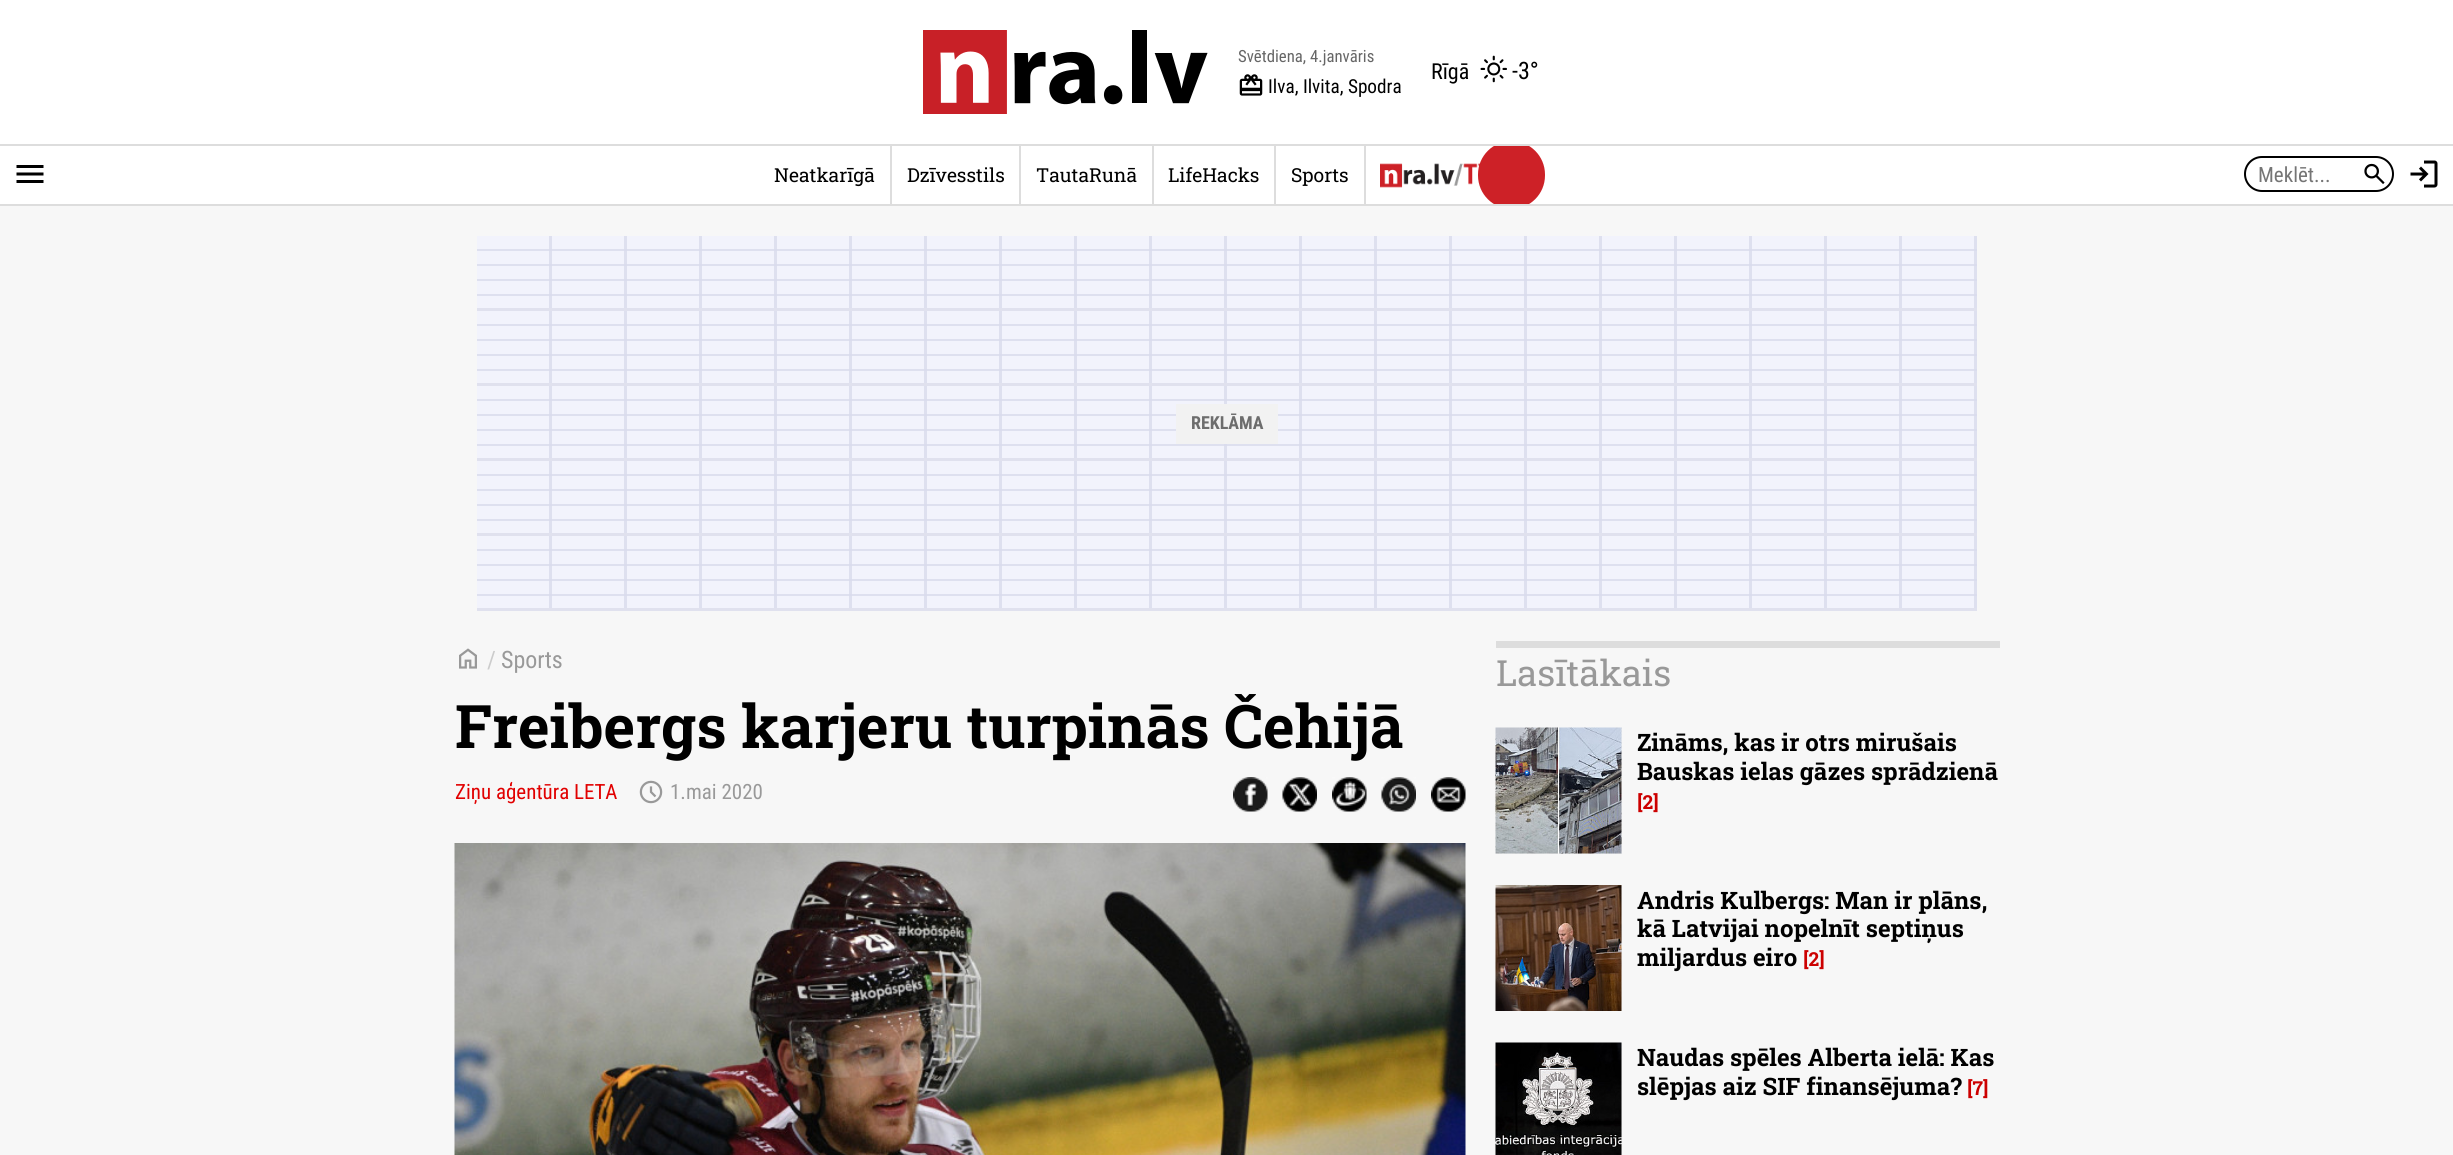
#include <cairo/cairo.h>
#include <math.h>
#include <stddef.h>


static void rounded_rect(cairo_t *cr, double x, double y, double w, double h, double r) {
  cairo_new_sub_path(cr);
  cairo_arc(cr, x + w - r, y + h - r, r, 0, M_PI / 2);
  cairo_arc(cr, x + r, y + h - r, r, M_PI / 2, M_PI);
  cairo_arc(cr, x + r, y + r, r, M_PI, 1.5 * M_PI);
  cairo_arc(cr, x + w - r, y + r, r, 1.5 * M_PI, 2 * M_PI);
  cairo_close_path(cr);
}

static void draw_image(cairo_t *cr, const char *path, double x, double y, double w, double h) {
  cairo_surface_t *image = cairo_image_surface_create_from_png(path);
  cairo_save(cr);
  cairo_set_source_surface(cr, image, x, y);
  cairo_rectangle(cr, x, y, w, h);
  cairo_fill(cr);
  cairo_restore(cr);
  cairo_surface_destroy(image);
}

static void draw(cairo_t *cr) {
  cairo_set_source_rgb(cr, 247 / 255.0, 247 / 255.0, 247 / 255.0);
  cairo_paint(cr);
  cairo_set_source_rgb(cr, 1, 1, 1);
  cairo_rectangle(cr, 0, 0, 2453, 204);
  cairo_fill(cr);
  cairo_set_source_rgb(cr, 221 / 255.0, 221 / 255.0, 221 / 255.0);
  cairo_rectangle(cr, 0, 204, 2453, 2);
  cairo_fill(cr);
  draw_image(cr, "images/1.png", 923, 30, 285, 84);
  draw_image(cr, "images/2.png", 1239, 74, 24, 22);
  draw_image(cr, "images/3.png", 1480, 55, 27, 28);
  draw_image(cr, "images/4.png", 16, 165, 28, 18);
  cairo_rectangle(cr, 0, 144, 2453, 2);
  cairo_fill(cr);
  cairo_rectangle(cr, 890, 146, 2, 58);
  cairo_fill(cr);
  cairo_rectangle(cr, 1019, 146, 2, 58);
  cairo_fill(cr);
  cairo_rectangle(cr, 1152, 146, 2, 58);
  cairo_fill(cr);
  cairo_rectangle(cr, 1274, 146, 2, 58);
  cairo_fill(cr);
  cairo_rectangle(cr, 1364, 146, 2, 58);
  cairo_fill(cr);
  draw_image(cr, "images/5.png", 1380, 163, 101, 25);
  cairo_save(cr);
  cairo_rectangle(cr, 759, 146, 786, 58);
  cairo_clip(cr);
  cairo_set_source_rgb(cr, 205 / 255.0, 33 / 255.0, 39 / 255.0);
  rounded_rect(cr, 1478, 141, 67, 68, 33.5);
  cairo_fill(cr);
  cairo_restore(cr);
  rounded_rect(cr, 2245, 157, 148, 34, 17);
  cairo_set_source_rgb(cr, 0, 0, 0);
  cairo_stroke(cr);
  draw_image(cr, "images/6.png", 2364, 163, 21, 21);
  draw_image(cr, "images/7.png", 2410, 160, 28, 28);
  cairo_set_source_rgb(cr, 242 / 255.0, 243 / 255.0, 252 / 255.0);
  cairo_rectangle(cr, 477, 236, 1500, 372);
  cairo_fill(cr);
  draw_image(cr, "images/8.png", 477, 249, 1500, 347);
  draw_image(cr, "images/9.png", 549, 236, 1428, 372);
  cairo_set_source_rgb(cr, 224 / 255.0, 225 / 255.0, 238 / 255.0);
  cairo_rectangle(cr, 477, 308, 1500, 3);
  cairo_fill(cr);
  cairo_rectangle(cr, 477, 383, 1500, 3);
  cairo_fill(cr);
  cairo_rectangle(cr, 477, 458, 1500, 3);
  cairo_fill(cr);
  cairo_rectangle(cr, 477, 533, 1500, 3);
  cairo_fill(cr);
  cairo_rectangle(cr, 477, 608, 1500, 3);
  cairo_fill(cr);
  cairo_set_source_rgb(cr, 242 / 255.0, 242 / 255.0, 242 / 255.0);
  cairo_rectangle(cr, 1176, 404, 102, 40);
  cairo_fill(cr);
  draw_image(cr, "images/10.png", 459, 648, 18, 21);
  draw_image(cr, "images/11.png", 639, 780, 24, 24);
  draw_image(cr, "images/12.png", 1233, 777, 35, 35);
  draw_image(cr, "images/13.png", 1282, 777, 35, 35);
  draw_image(cr, "images/14.png", 1332, 777, 35, 35);
  draw_image(cr, "images/15.png", 1381, 777, 35, 35);
  draw_image(cr, "images/16.png", 1431, 777, 35, 35);
  draw_image(cr, "images/17.png", 454, 843, 1012, 312);
  cairo_set_source_rgb(cr, 221 / 255.0, 221 / 255.0, 221 / 255.0);
  cairo_rectangle(cr, 1496, 641, 504, 7);
  cairo_fill(cr);
  cairo_set_source_rgb(cr, 238 / 255.0, 238 / 255.0, 238 / 255.0);
  cairo_rectangle(cr, 1496, 728, 126, 126);
  cairo_fill(cr);
  draw_image(cr, "images/18.png", 1495, 727, 127, 127);
  cairo_rectangle(cr, 1621, 885, 1, 126);
  cairo_fill(cr);
  draw_image(cr, "images/19.png", 1495, 885, 127, 126);
  cairo_rectangle(cr, 1621, 1043, 1, 112);
  cairo_fill(cr);
  draw_image(cr, "images/20.png", 1495, 1042, 127, 113);
  cairo_select_font_face(cr, "Roboto Condensed", CAIRO_FONT_SLANT_NORMAL, CAIRO_FONT_WEIGHT_NORMAL);
  cairo_set_font_size(cr, 16.75);
  cairo_set_source_rgb(cr, 102 / 255.0, 102 / 255.0, 102 / 255.0);
  cairo_move_to(cr, 1238, 62);
  cairo_show_text(cr, "Svētdiena, 4.janvāris");
  cairo_set_font_size(cr, 19.25);
  cairo_set_source_rgb(cr, 0, 0, 0);
  cairo_move_to(cr, 1268, 93);
  cairo_show_text(cr, "Ilva, Ilvita, Spodra");
  cairo_set_font_size(cr, 22);
  cairo_move_to(cr, 1431, 79);
  cairo_show_text(cr, "Rīgā");
  cairo_set_font_size(cr, 24);
  cairo_move_to(cr, 1512, 79);
  cairo_show_text(cr, "-3°");
  cairo_select_font_face(cr, "Roboto Slab", CAIRO_FONT_SLANT_NORMAL, CAIRO_FONT_WEIGHT_NORMAL);
  cairo_set_font_size(cr, 19.25);
  cairo_move_to(cr, 774, 182);
  cairo_show_text(cr, "Neatkarīgā");
  cairo_move_to(cr, 907, 182);
  cairo_show_text(cr, "Dzīvesstils");
  cairo_move_to(cr, 1036, 182);
  cairo_show_text(cr, "TautaRunā");
  cairo_move_to(cr, 1168, 182);
  cairo_show_text(cr, "LifeHacks");
  cairo_move_to(cr, 1291, 182);
  cairo_show_text(cr, "Sports");
  cairo_select_font_face(cr, "Roboto Condensed", CAIRO_FONT_SLANT_NORMAL, CAIRO_FONT_WEIGHT_NORMAL);
  cairo_set_font_size(cr, 21);
  cairo_set_source_rgb(cr, 117 / 255.0, 117 / 255.0, 117 / 255.0);
  cairo_move_to(cr, 2258, 182);
  cairo_show_text(cr, "Meklēt...");
  cairo_select_font_face(cr, "Roboto Condensed", CAIRO_FONT_SLANT_NORMAL, CAIRO_FONT_WEIGHT_BOLD);
  cairo_set_font_size(cr, 18);
  cairo_set_source_rgb(cr, 109 / 255.0, 109 / 255.0, 109 / 255.0);
  cairo_move_to(cr, 1191, 429);
  cairo_show_text(cr, "REKLĀMA");
  cairo_select_font_face(cr, "Roboto Condensed", CAIRO_FONT_SLANT_NORMAL, CAIRO_FONT_WEIGHT_NORMAL);
  cairo_set_font_size(cr, 24);
  cairo_set_source_rgb(cr, 204 / 255.0, 204 / 255.0, 204 / 255.0);
  cairo_move_to(cr, 487, 668);
  cairo_show_text(cr, "/");
  cairo_set_source_rgb(cr, 153 / 255.0, 153 / 255.0, 153 / 255.0);
  cairo_move_to(cr, 501, 668);
  cairo_show_text(cr, "Sports");
  cairo_select_font_face(cr, "Roboto Slab", CAIRO_FONT_SLANT_NORMAL, CAIRO_FONT_WEIGHT_BOLD);
  cairo_set_font_size(cr, 60);
  cairo_set_source_rgb(cr, 0, 0, 0);
  cairo_move_to(cr, 455, 748);
  cairo_show_text(cr, "Freibergs karjeru turpinās Čehijā");
  cairo_select_font_face(cr, "Roboto Condensed", CAIRO_FONT_SLANT_NORMAL, CAIRO_FONT_WEIGHT_NORMAL);
  cairo_set_font_size(cr, 21);
  cairo_set_source_rgb(cr, 225 / 255.0, 0, 0);
  cairo_move_to(cr, 455, 799);
  cairo_show_text(cr, "Ziņu aģentūra LETA");
  cairo_set_source_rgb(cr, 153 / 255.0, 153 / 255.0, 153 / 255.0);
  cairo_move_to(cr, 670, 799);
  cairo_show_text(cr, "1.mai 2020");
  cairo_select_font_face(cr, "Roboto Slab", CAIRO_FONT_SLANT_NORMAL, CAIRO_FONT_WEIGHT_NORMAL);
  cairo_set_font_size(cr, 36);
  cairo_move_to(cr, 1496, 686);
  cairo_show_text(cr, "Lasītākais");
  cairo_select_font_face(cr, "Roboto Slab", CAIRO_FONT_SLANT_NORMAL, CAIRO_FONT_WEIGHT_BOLD);
  cairo_set_font_size(cr, 24);
  cairo_set_source_rgb(cr, 0, 0, 0);
  cairo_move_to(cr, 1637, 751);
  cairo_show_text(cr, "Zināms, kas ir otrs mirušais");
  cairo_move_to(cr, 1637, 780);
  cairo_show_text(cr, "Bauskas ielas gāzes sprādzienā");
  cairo_set_font_size(cr, 19.25);
  cairo_set_source_rgb(cr, 204 / 255.0, 0, 0);
  cairo_move_to(cr, 1637, 809);
  cairo_show_text(cr, "[2]");
  cairo_set_font_size(cr, 24);
  cairo_set_source_rgb(cr, 0, 0, 0);
  cairo_move_to(cr, 1637, 909);
  cairo_show_text(cr, "Andris Kulbergs: Man ir plāns,");
  cairo_move_to(cr, 1637, 937);
  cairo_show_text(cr, "kā Latvijai nopelnīt septiņus");
  cairo_move_to(cr, 1637, 966);
  cairo_show_text(cr, "miljardus eiro");
  cairo_set_font_size(cr, 19.25);
  cairo_set_source_rgb(cr, 204 / 255.0, 0, 0);
  cairo_move_to(cr, 1803, 966);
  cairo_show_text(cr, "[2]");
  cairo_set_font_size(cr, 24);
  cairo_set_source_rgb(cr, 0, 0, 0);
  cairo_move_to(cr, 1637, 1066);
  cairo_show_text(cr, "Naudas spēles Alberta ielā: Kas");
  cairo_move_to(cr, 1637, 1095);
  cairo_show_text(cr, "slēpjas aiz SIF finansējuma?");
  cairo_set_font_size(cr, 19.25);
  cairo_set_source_rgb(cr, 204 / 255.0, 0, 0);
  cairo_move_to(cr, 1967, 1095);
  cairo_show_text(cr, "[7]");
}

int main(void) {
  cairo_surface_t *surface = cairo_image_surface_create(CAIRO_FORMAT_RGB24, 2453, 1155);
  cairo_t *cr = cairo_create(surface);
  cairo_font_options_t *options = cairo_font_options_create();
  cairo_font_options_set_hint_metrics(options, CAIRO_HINT_METRICS_OFF);
  cairo_font_options_set_hint_style(options, CAIRO_HINT_STYLE_NONE);
  cairo_set_font_options(cr, options);
  cairo_set_miter_limit(cr, 4);
  draw(cr);
  cairo_surface_write_to_png(surface, "out.png");
  cairo_font_options_destroy(options);
  cairo_destroy(cr);
  cairo_surface_destroy(surface);
  return 0;
}
